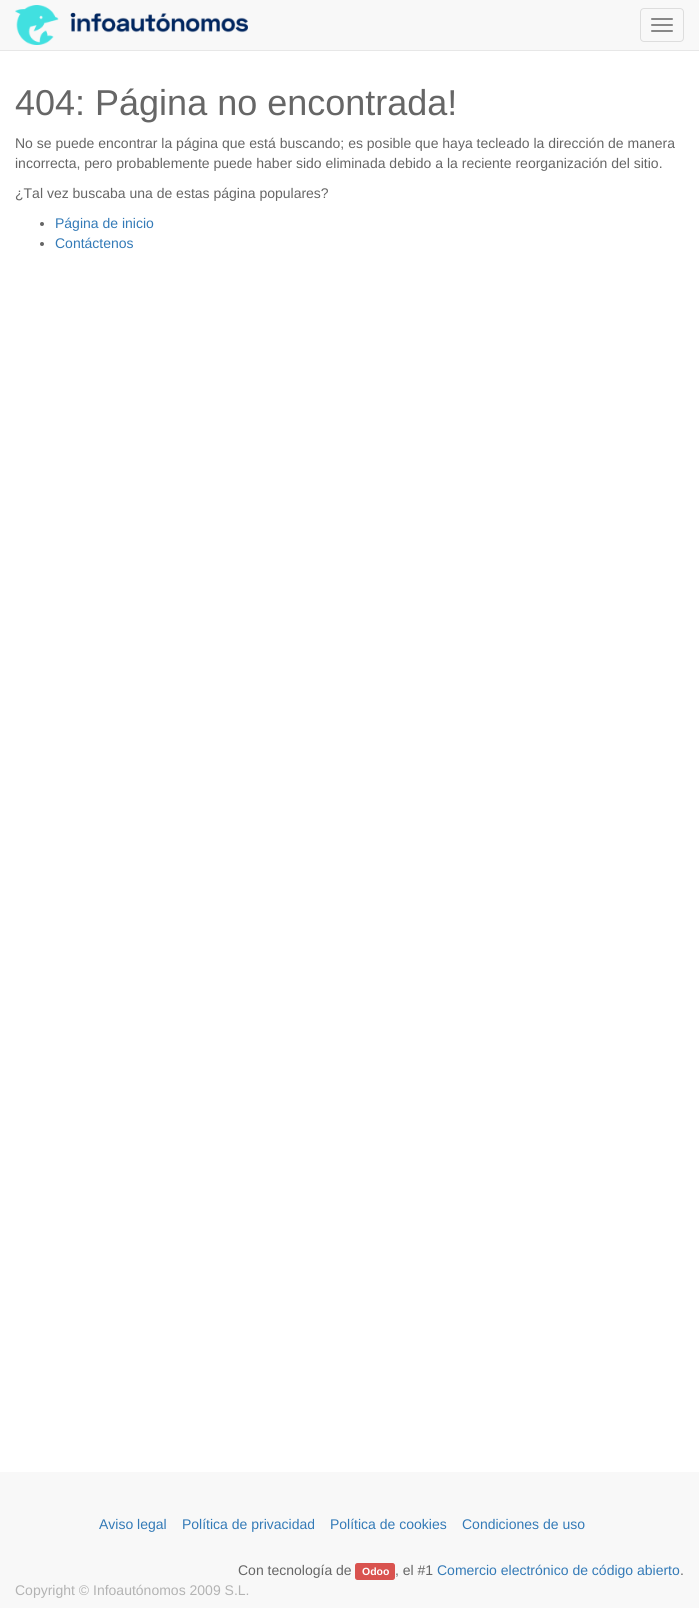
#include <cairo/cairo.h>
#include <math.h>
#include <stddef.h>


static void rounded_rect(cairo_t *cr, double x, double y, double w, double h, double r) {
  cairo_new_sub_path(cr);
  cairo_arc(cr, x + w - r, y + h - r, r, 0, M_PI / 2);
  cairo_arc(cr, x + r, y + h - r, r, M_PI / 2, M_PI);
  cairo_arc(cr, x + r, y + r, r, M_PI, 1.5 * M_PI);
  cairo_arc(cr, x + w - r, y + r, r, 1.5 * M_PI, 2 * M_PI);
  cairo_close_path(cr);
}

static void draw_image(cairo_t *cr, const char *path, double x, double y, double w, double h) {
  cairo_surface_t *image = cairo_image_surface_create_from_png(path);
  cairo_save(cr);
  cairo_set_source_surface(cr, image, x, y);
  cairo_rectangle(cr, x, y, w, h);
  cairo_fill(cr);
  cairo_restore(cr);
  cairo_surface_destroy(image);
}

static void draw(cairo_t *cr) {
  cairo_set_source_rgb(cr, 1, 1, 1);
  cairo_paint(cr);
  cairo_set_source_rgb(cr, 248 / 255.0, 248 / 255.0, 248 / 255.0);
  cairo_rectangle(cr, 0, 0, 699, 50);
  cairo_fill(cr);
  cairo_set_source_rgb(cr, 231 / 255.0, 231 / 255.0, 231 / 255.0);
  cairo_rectangle(cr, 0, 50, 699, 1);
  cairo_fill(cr);
  draw_image(cr, "images/1.png", 15, 5, 233, 40);
  rounded_rect(cr, 640.5, 8.5, 43, 33, 3.5);
  cairo_set_source_rgb(cr, 221 / 255.0, 221 / 255.0, 221 / 255.0);
  cairo_set_line_width(cr, 1);
  cairo_stroke(cr);
  cairo_set_source_rgb(cr, 136 / 255.0, 136 / 255.0, 136 / 255.0);
  rounded_rect(cr, 651, 18, 22, 2, 1);
  cairo_fill(cr);
  rounded_rect(cr, 651, 24, 22, 2, 1);
  cairo_fill(cr);
  rounded_rect(cr, 651, 30, 22, 2, 1);
  cairo_fill(cr);
  cairo_set_source_rgb(cr, 102 / 255.0, 102 / 255.0, 102 / 255.0);
  cairo_arc(cr, 42, 224, 2, 0, 2 * M_PI);
  cairo_fill(cr);
  cairo_arc(cr, 42, 244, 2, 0, 2 * M_PI);
  cairo_fill(cr);
  cairo_set_source_rgb(cr, 248 / 255.0, 248 / 255.0, 248 / 255.0);
  cairo_rectangle(cr, 0, 1472, 699, 136);
  cairo_fill(cr);
  cairo_set_source_rgb(cr, 217 / 255.0, 83 / 255.0, 79 / 255.0);
  rounded_rect(cr, 355, 1563, 40, 17, 2.5);
  cairo_fill(cr);
  cairo_select_font_face(cr, "Liberation Sans", CAIRO_FONT_SLANT_NORMAL, CAIRO_FONT_WEIGHT_NORMAL);
  cairo_set_font_size(cr, 36);
  cairo_set_source_rgb(cr, 102 / 255.0, 102 / 255.0, 102 / 255.0);
  cairo_move_to(cr, 15, 115);
  cairo_show_text(cr, "404: Página no encontrada!");
  cairo_set_font_size(cr, 14);
  cairo_move_to(cr, 15, 148);
  cairo_show_text(cr, "No se puede encontrar la página que está buscando; es posible que haya tecleado la dirección de manera");
  cairo_move_to(cr, 15, 168);
  cairo_show_text(cr, "incorrecta, pero probablemente puede haber sido eliminada debido a la reciente reorganización del sitio.");
  cairo_move_to(cr, 15, 198);
  cairo_show_text(cr, "¿Tal vez buscaba una de estas página populares?");
  cairo_set_source_rgb(cr, 51 / 255.0, 122 / 255.0, 183 / 255.0);
  cairo_move_to(cr, 55, 228);
  cairo_show_text(cr, "Página de inicio");
  cairo_move_to(cr, 55, 248);
  cairo_show_text(cr, "Contáctenos");
  cairo_move_to(cr, 99, 1529);
  cairo_show_text(cr, "Aviso legal");
  cairo_move_to(cr, 182, 1529);
  cairo_show_text(cr, "Política de privacidad");
  cairo_move_to(cr, 330, 1529);
  cairo_show_text(cr, "Política de cookies");
  cairo_move_to(cr, 462, 1529);
  cairo_show_text(cr, "Condiciones de uso");
  cairo_set_source_rgb(cr, 102 / 255.0, 102 / 255.0, 102 / 255.0);
  cairo_move_to(cr, 238, 1575);
  cairo_show_text(cr, "Con tecnología de");
  cairo_select_font_face(cr, "Liberation Sans", CAIRO_FONT_SLANT_NORMAL, CAIRO_FONT_WEIGHT_BOLD);
  cairo_set_font_size(cr, 10.5);
  cairo_set_source_rgb(cr, 1, 1, 1);
  cairo_move_to(cr, 362, 1575);
  cairo_show_text(cr, "Odoo");
  cairo_select_font_face(cr, "Liberation Sans", CAIRO_FONT_SLANT_NORMAL, CAIRO_FONT_WEIGHT_NORMAL);
  cairo_set_font_size(cr, 14);
  cairo_set_source_rgb(cr, 102 / 255.0, 102 / 255.0, 102 / 255.0);
  cairo_move_to(cr, 395, 1575);
  cairo_show_text(cr, ", el #1");
  cairo_set_source_rgb(cr, 51 / 255.0, 122 / 255.0, 183 / 255.0);
  cairo_move_to(cr, 437, 1575);
  cairo_show_text(cr, "Comercio electrónico de código abierto");
  cairo_set_source_rgb(cr, 102 / 255.0, 102 / 255.0, 102 / 255.0);
  cairo_move_to(cr, 680, 1575);
  cairo_show_text(cr, ".");
  cairo_set_source_rgb(cr, 179 / 255.0, 179 / 255.0, 179 / 255.0);
  cairo_move_to(cr, 15, 1595);
  cairo_show_text(cr, "Copyright © Infoautónomos 2009 S.L.");
}

int main(void) {
  cairo_surface_t *surface = cairo_image_surface_create(CAIRO_FORMAT_RGB24, 699, 1608);
  cairo_t *cr = cairo_create(surface);
  cairo_font_options_t *options = cairo_font_options_create();
  cairo_font_options_set_hint_metrics(options, CAIRO_HINT_METRICS_OFF);
  cairo_font_options_set_hint_style(options, CAIRO_HINT_STYLE_NONE);
  cairo_set_font_options(cr, options);
  cairo_set_miter_limit(cr, 4);
  draw(cr);
  cairo_surface_write_to_png(surface, "out.png");
  cairo_font_options_destroy(options);
  cairo_destroy(cr);
  cairo_surface_destroy(surface);
  return 0;
}
